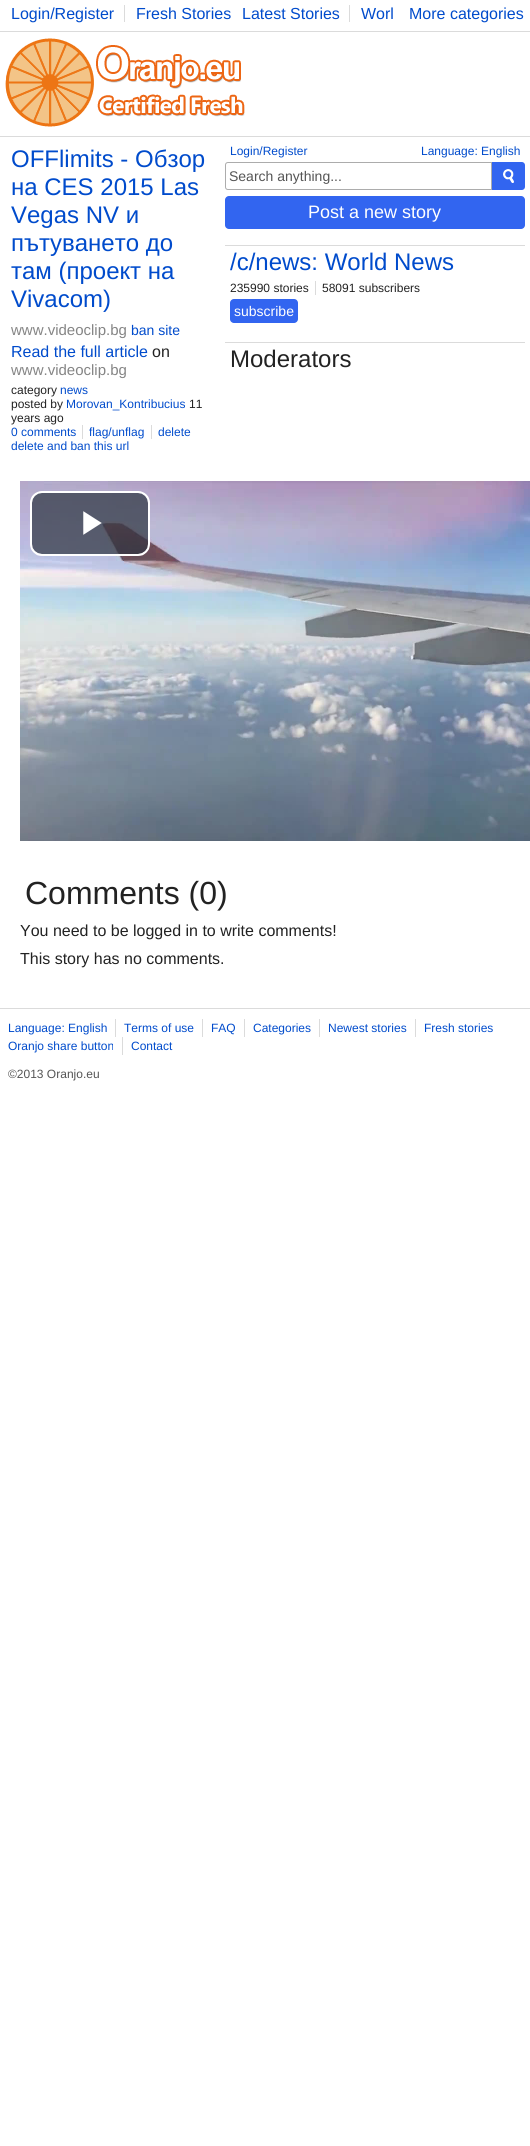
#include <cairo/cairo.h>
#include <math.h>
#include <stddef.h>


static void rounded_rect(cairo_t *cr, double x, double y, double w, double h, double r) {
  cairo_new_sub_path(cr);
  cairo_arc(cr, x + w - r, y + h - r, r, 0, M_PI / 2);
  cairo_arc(cr, x + r, y + h - r, r, M_PI / 2, M_PI);
  cairo_arc(cr, x + r, y + r, r, M_PI, 1.5 * M_PI);
  cairo_arc(cr, x + w - r, y + r, r, 1.5 * M_PI, 2 * M_PI);
  cairo_close_path(cr);
}

static void draw_image(cairo_t *cr, const char *path, double x, double y, double w, double h) {
  cairo_surface_t *image = cairo_image_surface_create_from_png(path);
  cairo_save(cr);
  cairo_set_source_surface(cr, image, x, y);
  cairo_rectangle(cr, x, y, w, h);
  cairo_fill(cr);
  cairo_restore(cr);
  cairo_surface_destroy(image);
}

static void draw(cairo_t *cr) {
  cairo_set_source_rgb(cr, 1, 1, 1);
  cairo_paint(cr);
  cairo_set_source_rgb(cr, 219 / 255.0, 219 / 255.0, 219 / 255.0);
  cairo_rectangle(cr, 0, 31, 530, 1);
  cairo_fill(cr);
  cairo_rectangle(cr, 124, 5, 1, 17);
  cairo_fill(cr);
  cairo_rectangle(cr, 349, 5, 1, 17);
  cairo_fill(cr);
  cairo_rectangle(cr, 0, 136, 530, 1);
  cairo_fill(cr);
  draw_image(cr, "images/1.png", 5, 38, 240, 89);
  cairo_rectangle(cr, 82, 425, 1, 14);
  cairo_fill(cr);
  cairo_rectangle(cr, 151, 425, 1, 14);
  cairo_fill(cr);
  draw_image(cr, "images/2.png", 20, 481, 510, 360);
  cairo_new_path(cr);
  cairo_move_to(cr, 228, 162.5);
  cairo_line_to(cr, 491.5, 162.5);
  cairo_line_to(cr, 491.5, 189.5);
  cairo_line_to(cr, 228, 189.5);
  cairo_curve_to(cr, 226.5, 189.5, 225.5, 188.5, 225.5, 187);
  cairo_line_to(cr, 225.5, 165);
  cairo_curve_to(cr, 225.5, 163.5, 226.5, 162.5, 228, 162.5);
  cairo_close_path(cr);
  cairo_set_source_rgb(cr, 172 / 255.0, 172 / 255.0, 172 / 255.0);
  cairo_set_line_width(cr, 1);
  cairo_stroke(cr);
  cairo_set_source_rgb(cr, 50 / 255.0, 101 / 255.0, 240 / 255.0);
  cairo_new_path(cr);
  cairo_move_to(cr, 492, 162);
  cairo_line_to(cr, 522, 162);
  cairo_curve_to(cr, 523.5, 162, 525, 163.5, 525, 165);
  cairo_line_to(cr, 525, 187);
  cairo_curve_to(cr, 525, 188.5, 523.5, 190, 522, 190);
  cairo_line_to(cr, 492, 190);
  cairo_close_path(cr);
  cairo_fill(cr);
  draw_image(cr, "images/3.png", 503, 169, 11, 14);
  rounded_rect(cr, 225, 196, 300, 33, 4);
  cairo_fill(cr);
  cairo_set_source_rgb(cr, 219 / 255.0, 219 / 255.0, 219 / 255.0);
  cairo_rectangle(cr, 225, 245, 300, 1);
  cairo_fill(cr);
  cairo_rectangle(cr, 315, 281, 1, 14);
  cairo_fill(cr);
  cairo_set_source_rgb(cr, 50 / 255.0, 101 / 255.0, 240 / 255.0);
  rounded_rect(cr, 230, 299, 68, 24, 4);
  cairo_fill(cr);
  cairo_set_source_rgb(cr, 219 / 255.0, 219 / 255.0, 219 / 255.0);
  cairo_rectangle(cr, 225, 342, 300, 1);
  cairo_fill(cr);
  cairo_rectangle(cr, 0, 1008, 530, 1);
  cairo_fill(cr);
  cairo_rectangle(cr, 115, 1019, 1, 18);
  cairo_fill(cr);
  cairo_rectangle(cr, 202, 1019, 1, 18);
  cairo_fill(cr);
  cairo_rectangle(cr, 244, 1019, 1, 18);
  cairo_fill(cr);
  cairo_rectangle(cr, 319, 1019, 1, 18);
  cairo_fill(cr);
  cairo_rectangle(cr, 415, 1019, 1, 18);
  cairo_fill(cr);
  cairo_rectangle(cr, 122, 1037, 1, 18);
  cairo_fill(cr);
  cairo_select_font_face(cr, "Liberation Sans", CAIRO_FONT_SLANT_NORMAL, CAIRO_FONT_WEIGHT_NORMAL);
  cairo_set_font_size(cr, 16);
  cairo_set_source_rgb(cr, 0, 75 / 255.0, 204 / 255.0);
  cairo_move_to(cr, 11, 19);
  cairo_show_text(cr, "Login/Register");
  cairo_move_to(cr, 136, 19);
  cairo_show_text(cr, "Fresh Stories");
  cairo_move_to(cr, 242, 19);
  cairo_show_text(cr, "Latest Stories");
  cairo_move_to(cr, 361, 19);
  cairo_show_text(cr, "Worl");
  cairo_move_to(cr, 409, 19);
  cairo_show_text(cr, "More categories");
  cairo_set_font_size(cr, 24);
  cairo_move_to(cr, 11, 167);
  cairo_show_text(cr, "OFFlimits - Обзор");
  cairo_move_to(cr, 11, 195);
  cairo_show_text(cr, "на CES 2015 Las");
  cairo_move_to(cr, 11, 223);
  cairo_show_text(cr, "Vegas NV и");
  cairo_move_to(cr, 11, 251);
  cairo_show_text(cr, "пътуването до");
  cairo_move_to(cr, 11, 279);
  cairo_show_text(cr, "там (проект на");
  cairo_move_to(cr, 11, 307);
  cairo_show_text(cr, "Vivacom)");
  cairo_set_font_size(cr, 15);
  cairo_set_source_rgb(cr, 133 / 255.0, 133 / 255.0, 133 / 255.0);
  cairo_move_to(cr, 11, 335);
  cairo_show_text(cr, "www.videoclip.bg");
  cairo_set_font_size(cr, 14);
  cairo_set_source_rgb(cr, 0, 75 / 255.0, 204 / 255.0);
  cairo_move_to(cr, 131, 335);
  cairo_show_text(cr, "ban site");
  cairo_set_font_size(cr, 16);
  cairo_move_to(cr, 11, 357);
  cairo_show_text(cr, "Read the full article");
  cairo_set_source_rgb(cr, 34 / 255.0, 34 / 255.0, 34 / 255.0);
  cairo_move_to(cr, 152, 357);
  cairo_show_text(cr, "on");
  cairo_set_font_size(cr, 15);
  cairo_set_source_rgb(cr, 133 / 255.0, 133 / 255.0, 133 / 255.0);
  cairo_move_to(cr, 11, 375);
  cairo_show_text(cr, "www.videoclip.bg");
  cairo_set_font_size(cr, 12);
  cairo_set_source_rgb(cr, 34 / 255.0, 34 / 255.0, 34 / 255.0);
  cairo_move_to(cr, 11, 394);
  cairo_show_text(cr, "category");
  cairo_set_source_rgb(cr, 0, 75 / 255.0, 204 / 255.0);
  cairo_move_to(cr, 60, 394);
  cairo_show_text(cr, "news");
  cairo_set_source_rgb(cr, 34 / 255.0, 34 / 255.0, 34 / 255.0);
  cairo_move_to(cr, 11, 408);
  cairo_show_text(cr, "posted by");
  cairo_set_source_rgb(cr, 0, 75 / 255.0, 204 / 255.0);
  cairo_move_to(cr, 66, 408);
  cairo_show_text(cr, "Morovan_Kontribucius");
  cairo_set_source_rgb(cr, 34 / 255.0, 34 / 255.0, 34 / 255.0);
  cairo_move_to(cr, 189, 408);
  cairo_show_text(cr, "11");
  cairo_move_to(cr, 11, 422);
  cairo_show_text(cr, "years ago");
  cairo_set_source_rgb(cr, 0, 75 / 255.0, 204 / 255.0);
  cairo_move_to(cr, 11, 436);
  cairo_show_text(cr, "0 comments");
  cairo_move_to(cr, 89, 436);
  cairo_show_text(cr, "flag/unflag");
  cairo_move_to(cr, 158, 436);
  cairo_show_text(cr, "delete");
  cairo_move_to(cr, 11, 450);
  cairo_show_text(cr, "delete and ban this url");
  cairo_set_font_size(cr, 32);
  cairo_set_source_rgb(cr, 34 / 255.0, 34 / 255.0, 34 / 255.0);
  cairo_move_to(cr, 25, 904);
  cairo_show_text(cr, "Comments (0)");
  cairo_set_font_size(cr, 16);
  cairo_move_to(cr, 20, 936);
  cairo_show_text(cr, "You need to be logged in to write comments!");
  cairo_move_to(cr, 20, 964);
  cairo_show_text(cr, "This story has no comments.");
  cairo_set_font_size(cr, 12);
  cairo_set_source_rgb(cr, 0, 75 / 255.0, 204 / 255.0);
  cairo_move_to(cr, 230, 155);
  cairo_show_text(cr, "Login/Register");
  cairo_move_to(cr, 421, 155);
  cairo_show_text(cr, "Language: English");
  cairo_set_font_size(cr, 14);
  cairo_set_source_rgb(cr, 85 / 255.0, 85 / 255.0, 85 / 255.0);
  cairo_move_to(cr, 229, 181);
  cairo_show_text(cr, "Search anything...");
  cairo_set_font_size(cr, 18);
  cairo_set_source_rgb(cr, 1, 1, 1);
  cairo_move_to(cr, 308, 218);
  cairo_show_text(cr, "Post a new story");
  cairo_set_font_size(cr, 24);
  cairo_set_source_rgb(cr, 0, 75 / 255.0, 204 / 255.0);
  cairo_move_to(cr, 230, 270);
  cairo_show_text(cr, "/c/news: World News");
  cairo_set_font_size(cr, 12);
  cairo_set_source_rgb(cr, 34 / 255.0, 34 / 255.0, 34 / 255.0);
  cairo_move_to(cr, 230, 292);
  cairo_show_text(cr, "235990 stories");
  cairo_move_to(cr, 322, 292);
  cairo_show_text(cr, "58091 subscribers");
  cairo_set_font_size(cr, 14);
  cairo_set_source_rgb(cr, 1, 1, 1);
  cairo_move_to(cr, 234, 316);
  cairo_show_text(cr, "subscribe");
  cairo_set_font_size(cr, 24);
  cairo_set_source_rgb(cr, 34 / 255.0, 34 / 255.0, 34 / 255.0);
  cairo_move_to(cr, 230, 367);
  cairo_show_text(cr, "Moderators");
  cairo_set_font_size(cr, 12);
  cairo_set_source_rgb(cr, 0, 75 / 255.0, 204 / 255.0);
  cairo_move_to(cr, 8, 1032);
  cairo_show_text(cr, "Language: English");
  cairo_move_to(cr, 124, 1032);
  cairo_show_text(cr, "Terms of use");
  cairo_move_to(cr, 211, 1032);
  cairo_show_text(cr, "FAQ");
  cairo_move_to(cr, 253, 1032);
  cairo_show_text(cr, "Categories");
  cairo_move_to(cr, 328, 1032);
  cairo_show_text(cr, "Newest stories");
  cairo_move_to(cr, 424, 1032);
  cairo_show_text(cr, "Fresh stories");
  cairo_move_to(cr, 8, 1050);
  cairo_show_text(cr, "Oranjo share button");
  cairo_move_to(cr, 131, 1050);
  cairo_show_text(cr, "Contact");
  cairo_set_source_rgb(cr, 85 / 255.0, 85 / 255.0, 85 / 255.0);
  cairo_move_to(cr, 8, 1078);
  cairo_show_text(cr, "©2013 Oranjo.eu");
}

int main(void) {
  cairo_surface_t *surface = cairo_image_surface_create(CAIRO_FORMAT_RGB24, 530, 2146);
  cairo_t *cr = cairo_create(surface);
  cairo_font_options_t *options = cairo_font_options_create();
  cairo_font_options_set_hint_metrics(options, CAIRO_HINT_METRICS_OFF);
  cairo_font_options_set_hint_style(options, CAIRO_HINT_STYLE_NONE);
  cairo_set_font_options(cr, options);
  cairo_set_miter_limit(cr, 4);
  draw(cr);
  cairo_surface_write_to_png(surface, "out.png");
  cairo_font_options_destroy(options);
  cairo_destroy(cr);
  cairo_surface_destroy(surface);
  return 0;
}
